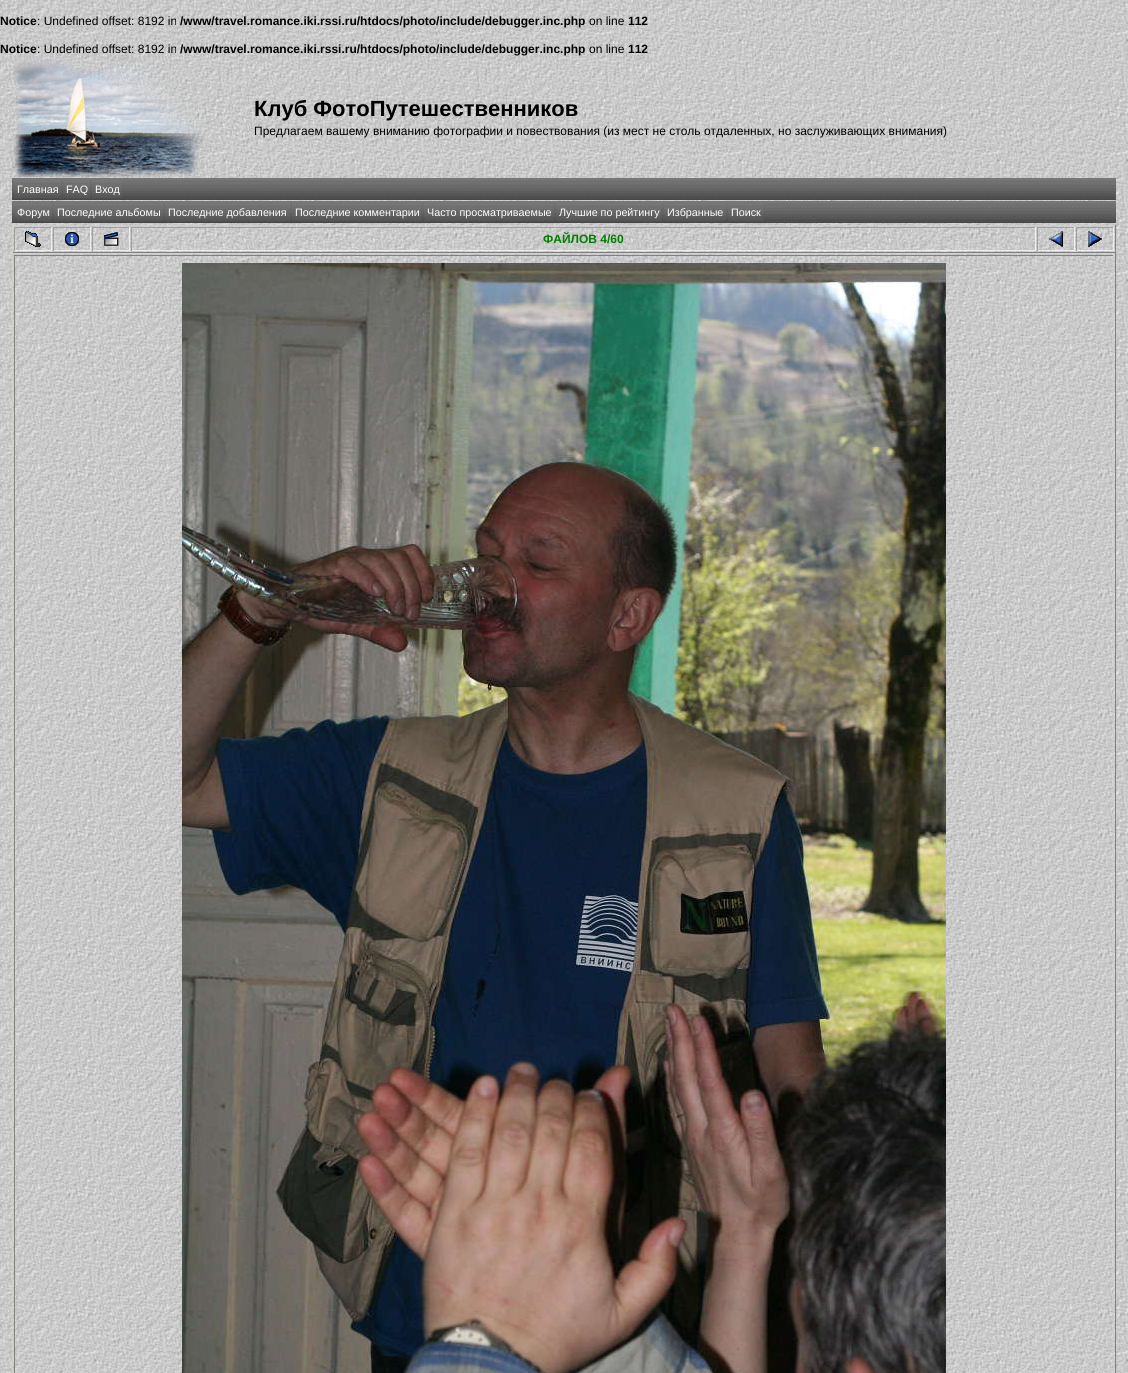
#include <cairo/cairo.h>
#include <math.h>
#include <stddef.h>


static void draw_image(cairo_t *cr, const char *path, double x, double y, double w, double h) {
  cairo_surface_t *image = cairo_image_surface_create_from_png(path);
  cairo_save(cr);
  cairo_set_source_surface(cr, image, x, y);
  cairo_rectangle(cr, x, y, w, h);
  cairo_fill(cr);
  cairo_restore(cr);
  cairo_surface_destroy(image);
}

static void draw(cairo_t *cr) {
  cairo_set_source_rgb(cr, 1, 1, 1);
  cairo_paint(cr);
  draw_image(cr, "images/1.png", 0, 0, 1128, 1373);
  draw_image(cr, "images/2.png", 12, 57, 193, 120);
  draw_image(cr, "images/3.png", 12, 178, 1104, 22);
  draw_image(cr, "images/4.png", 14, 180, 47, 18);
  draw_image(cr, "images/5.png", 63, 180, 27, 18);
  draw_image(cr, "images/6.png", 92, 180, 30, 18);
  draw_image(cr, "images/3.png", 12, 201, 1104, 22);
  draw_image(cr, "images/7.png", 14, 203, 38, 18);
  draw_image(cr, "images/8.png", 54, 203, 109, 18);
  draw_image(cr, "images/9.png", 165, 203, 125, 18);
  draw_image(cr, "images/10.png", 292, 203, 130, 18);
  draw_image(cr, "images/11.png", 424, 203, 130, 18);
  draw_image(cr, "images/12.png", 556, 203, 106, 18);
  draw_image(cr, "images/13.png", 664, 203, 62, 18);
  draw_image(cr, "images/14.png", 728, 203, 35, 18);
  cairo_set_source_rgb(cr, 212 / 255.0, 208 / 255.0, 200 / 255.0);
  cairo_rectangle(cr, 12, 225, 1104, 1);
  cairo_fill(cr);
  cairo_set_source_rgb(cr, 128 / 255.0, 128 / 255.0, 128 / 255.0);
  cairo_rectangle(cr, 1115, 225, 1, 28);
  cairo_fill(cr);
  cairo_rectangle(cr, 12, 252, 1104, 1);
  cairo_fill(cr);
  cairo_set_source_rgb(cr, 212 / 255.0, 208 / 255.0, 200 / 255.0);
  cairo_rectangle(cr, 12, 225, 1, 28);
  cairo_fill(cr);
  cairo_set_source_rgb(cr, 159 / 255.0, 159 / 255.0, 159 / 255.0);
  cairo_rectangle(cr, 14, 227, 38, 1);
  cairo_fill(cr);
  cairo_set_source_rgb(cr, 238 / 255.0, 238 / 255.0, 238 / 255.0);
  cairo_rectangle(cr, 51, 227, 1, 24);
  cairo_fill(cr);
  cairo_rectangle(cr, 14, 250, 38, 1);
  cairo_fill(cr);
  cairo_set_source_rgb(cr, 159 / 255.0, 159 / 255.0, 159 / 255.0);
  cairo_rectangle(cr, 14, 227, 1, 24);
  cairo_fill(cr);
  draw_image(cr, "images/15.png", 25, 231, 16, 16);
  cairo_rectangle(cr, 53, 227, 38, 1);
  cairo_fill(cr);
  cairo_set_source_rgb(cr, 238 / 255.0, 238 / 255.0, 238 / 255.0);
  cairo_rectangle(cr, 90, 227, 1, 24);
  cairo_fill(cr);
  cairo_rectangle(cr, 53, 250, 38, 1);
  cairo_fill(cr);
  cairo_set_source_rgb(cr, 159 / 255.0, 159 / 255.0, 159 / 255.0);
  cairo_rectangle(cr, 53, 227, 1, 24);
  cairo_fill(cr);
  draw_image(cr, "images/16.png", 65, 232, 14, 14);
  cairo_rectangle(cr, 92, 227, 38, 1);
  cairo_fill(cr);
  cairo_set_source_rgb(cr, 238 / 255.0, 238 / 255.0, 238 / 255.0);
  cairo_rectangle(cr, 129, 227, 1, 24);
  cairo_fill(cr);
  cairo_rectangle(cr, 92, 250, 38, 1);
  cairo_fill(cr);
  cairo_set_source_rgb(cr, 159 / 255.0, 159 / 255.0, 159 / 255.0);
  cairo_rectangle(cr, 92, 227, 1, 24);
  cairo_fill(cr);
  draw_image(cr, "images/17.png", 104, 232, 15, 14);
  cairo_rectangle(cr, 131, 227, 905, 1);
  cairo_fill(cr);
  cairo_set_source_rgb(cr, 238 / 255.0, 238 / 255.0, 238 / 255.0);
  cairo_rectangle(cr, 1035, 227, 1, 24);
  cairo_fill(cr);
  cairo_rectangle(cr, 131, 250, 905, 1);
  cairo_fill(cr);
  cairo_set_source_rgb(cr, 159 / 255.0, 159 / 255.0, 159 / 255.0);
  cairo_rectangle(cr, 131, 227, 1, 24);
  cairo_fill(cr);
  cairo_rectangle(cr, 1037, 227, 38, 1);
  cairo_fill(cr);
  cairo_set_source_rgb(cr, 238 / 255.0, 238 / 255.0, 238 / 255.0);
  cairo_rectangle(cr, 1074, 227, 1, 24);
  cairo_fill(cr);
  cairo_rectangle(cr, 1037, 250, 38, 1);
  cairo_fill(cr);
  cairo_set_source_rgb(cr, 159 / 255.0, 159 / 255.0, 159 / 255.0);
  cairo_rectangle(cr, 1037, 227, 1, 24);
  cairo_fill(cr);
  draw_image(cr, "images/18.png", 1049, 231, 14, 16);
  cairo_rectangle(cr, 1076, 227, 38, 1);
  cairo_fill(cr);
  cairo_set_source_rgb(cr, 238 / 255.0, 238 / 255.0, 238 / 255.0);
  cairo_rectangle(cr, 1113, 227, 1, 24);
  cairo_fill(cr);
  cairo_rectangle(cr, 1076, 250, 38, 1);
  cairo_fill(cr);
  cairo_set_source_rgb(cr, 159 / 255.0, 159 / 255.0, 159 / 255.0);
  cairo_rectangle(cr, 1076, 227, 1, 24);
  cairo_fill(cr);
  draw_image(cr, "images/19.png", 1088, 231, 14, 16);
  cairo_set_source_rgb(cr, 212 / 255.0, 208 / 255.0, 200 / 255.0);
  cairo_rectangle(cr, 12, 253, 1104, 1);
  cairo_fill(cr);
  cairo_set_source_rgb(cr, 128 / 255.0, 128 / 255.0, 128 / 255.0);
  cairo_rectangle(cr, 1115, 253, 1, 1120);
  cairo_fill(cr);
  cairo_set_source_rgb(cr, 212 / 255.0, 208 / 255.0, 200 / 255.0);
  cairo_rectangle(cr, 12, 253, 1, 1120);
  cairo_fill(cr);
  cairo_set_source_rgb(cr, 128 / 255.0, 128 / 255.0, 128 / 255.0);
  cairo_rectangle(cr, 14, 255, 1100, 1);
  cairo_fill(cr);
  cairo_set_source_rgb(cr, 212 / 255.0, 208 / 255.0, 200 / 255.0);
  cairo_rectangle(cr, 1113, 255, 1, 1118);
  cairo_fill(cr);
  cairo_set_source_rgb(cr, 128 / 255.0, 128 / 255.0, 128 / 255.0);
  cairo_rectangle(cr, 14, 255, 1, 1118);
  cairo_fill(cr);
  draw_image(cr, "images/20.png", 182, 263, 764, 1110);
  cairo_select_font_face(cr, "Liberation Sans", CAIRO_FONT_SLANT_NORMAL, CAIRO_FONT_WEIGHT_BOLD);
  cairo_set_font_size(cr, 12);
  cairo_set_source_rgb(cr, 0, 0, 0);
  cairo_move_to(cr, 0, 25);
  cairo_show_text(cr, "Notice");
  cairo_select_font_face(cr, "Liberation Sans", CAIRO_FONT_SLANT_NORMAL, CAIRO_FONT_WEIGHT_NORMAL);
  cairo_move_to(cr, 37, 25);
  cairo_show_text(cr, ": Undefined offset: 8192 in");
  cairo_select_font_face(cr, "Liberation Sans", CAIRO_FONT_SLANT_NORMAL, CAIRO_FONT_WEIGHT_BOLD);
  cairo_move_to(cr, 180, 25);
  cairo_show_text(cr, "/www/travel.romance.iki.rssi.ru/htdocs/photo/include/debugger.inc.php");
  cairo_select_font_face(cr, "Liberation Sans", CAIRO_FONT_SLANT_NORMAL, CAIRO_FONT_WEIGHT_NORMAL);
  cairo_move_to(cr, 589, 25);
  cairo_show_text(cr, "on line");
  cairo_select_font_face(cr, "Liberation Sans", CAIRO_FONT_SLANT_NORMAL, CAIRO_FONT_WEIGHT_BOLD);
  cairo_move_to(cr, 628, 25);
  cairo_show_text(cr, "112");
  cairo_move_to(cr, 0, 53);
  cairo_show_text(cr, "Notice");
  cairo_select_font_face(cr, "Liberation Sans", CAIRO_FONT_SLANT_NORMAL, CAIRO_FONT_WEIGHT_NORMAL);
  cairo_move_to(cr, 37, 53);
  cairo_show_text(cr, ": Undefined offset: 8192 in");
  cairo_select_font_face(cr, "Liberation Sans", CAIRO_FONT_SLANT_NORMAL, CAIRO_FONT_WEIGHT_BOLD);
  cairo_move_to(cr, 180, 53);
  cairo_show_text(cr, "/www/travel.romance.iki.rssi.ru/htdocs/photo/include/debugger.inc.php");
  cairo_select_font_face(cr, "Liberation Sans", CAIRO_FONT_SLANT_NORMAL, CAIRO_FONT_WEIGHT_NORMAL);
  cairo_move_to(cr, 589, 53);
  cairo_show_text(cr, "on line");
  cairo_select_font_face(cr, "Liberation Sans", CAIRO_FONT_SLANT_NORMAL, CAIRO_FONT_WEIGHT_BOLD);
  cairo_move_to(cr, 628, 53);
  cairo_show_text(cr, "112");
  cairo_set_font_size(cr, 22);
  cairo_move_to(cr, 254, 116);
  cairo_show_text(cr, "Клуб ФотоПутешественников");
  cairo_select_font_face(cr, "Liberation Sans", CAIRO_FONT_SLANT_NORMAL, CAIRO_FONT_WEIGHT_NORMAL);
  cairo_set_font_size(cr, 12);
  cairo_move_to(cr, 254, 135);
  cairo_show_text(cr, "Предлагаем вашему вниманию фотографии и повествования (из мест не столь отдаленных, но заслуживающих внимания)");
  cairo_set_font_size(cr, 10.75);
  cairo_set_source_rgb(cr, 1, 1, 1);
  cairo_move_to(cr, 17, 193);
  cairo_show_text(cr, "Главная");
  cairo_move_to(cr, 66, 193);
  cairo_show_text(cr, "FAQ");
  cairo_move_to(cr, 95, 193);
  cairo_show_text(cr, "Вход");
  cairo_move_to(cr, 17, 216);
  cairo_show_text(cr, "Форум");
  cairo_move_to(cr, 57, 216);
  cairo_show_text(cr, "Последние альбомы");
  cairo_move_to(cr, 168, 216);
  cairo_show_text(cr, "Последние добавления");
  cairo_move_to(cr, 295, 216);
  cairo_show_text(cr, "Последние комментарии");
  cairo_move_to(cr, 427, 216);
  cairo_show_text(cr, "Часто просматриваемые");
  cairo_move_to(cr, 559, 216);
  cairo_show_text(cr, "Лучшие по рейтингу");
  cairo_move_to(cr, 667, 216);
  cairo_show_text(cr, "Избранные");
  cairo_move_to(cr, 731, 216);
  cairo_show_text(cr, "Поиск");
  cairo_select_font_face(cr, "Liberation Sans", CAIRO_FONT_SLANT_NORMAL, CAIRO_FONT_WEIGHT_BOLD);
  cairo_set_font_size(cr, 12);
  cairo_set_source_rgb(cr, 0, 128 / 255.0, 0);
  cairo_move_to(cr, 543, 243);
  cairo_show_text(cr, "ФАЙЛОВ 4/60");
}

int main(void) {
  cairo_surface_t *surface = cairo_image_surface_create(CAIRO_FORMAT_RGB24, 1128, 1373);
  cairo_t *cr = cairo_create(surface);
  cairo_font_options_t *options = cairo_font_options_create();
  cairo_font_options_set_hint_metrics(options, CAIRO_HINT_METRICS_OFF);
  cairo_font_options_set_hint_style(options, CAIRO_HINT_STYLE_NONE);
  cairo_set_font_options(cr, options);
  cairo_set_miter_limit(cr, 4);
  draw(cr);
  cairo_surface_write_to_png(surface, "out.png");
  cairo_font_options_destroy(options);
  cairo_destroy(cr);
  cairo_surface_destroy(surface);
  return 0;
}
